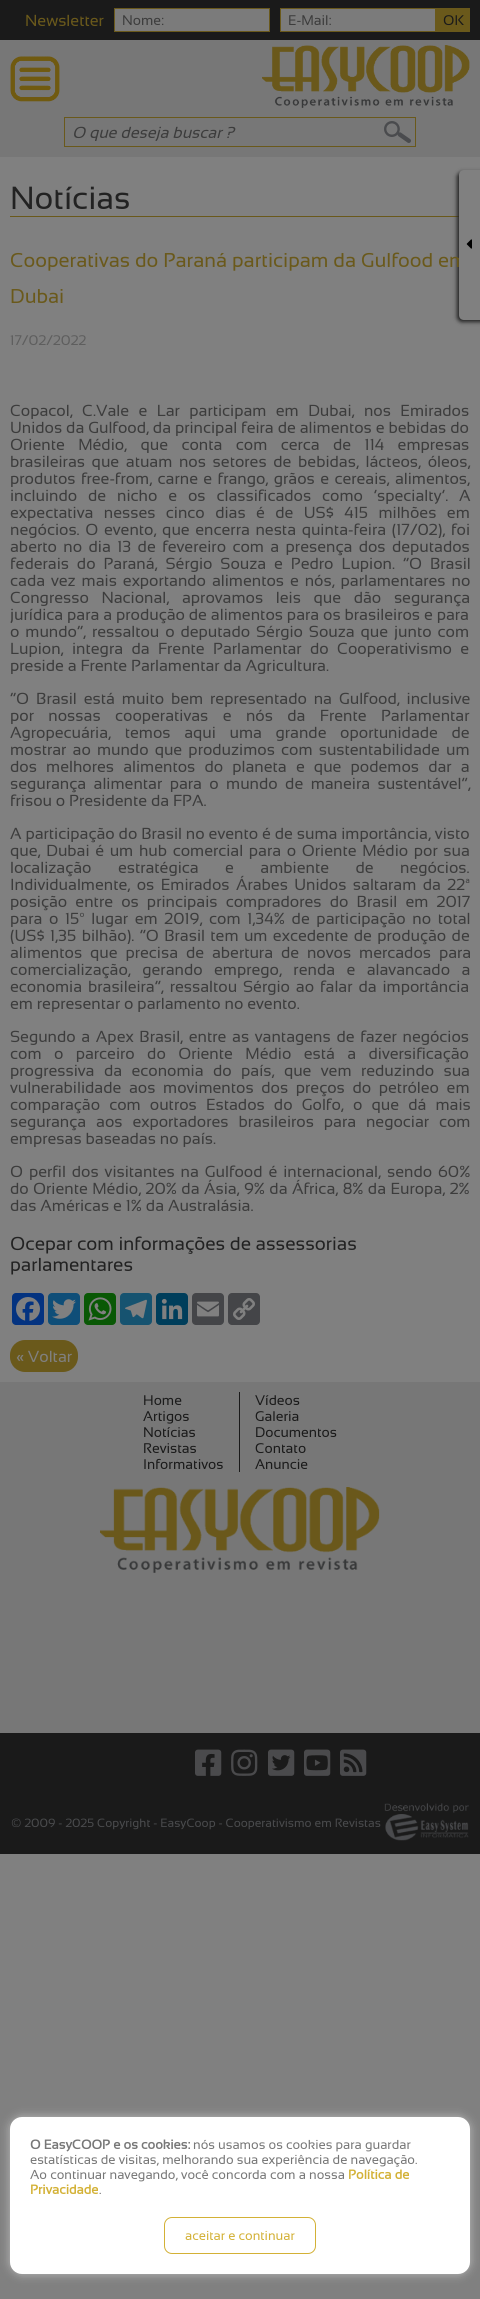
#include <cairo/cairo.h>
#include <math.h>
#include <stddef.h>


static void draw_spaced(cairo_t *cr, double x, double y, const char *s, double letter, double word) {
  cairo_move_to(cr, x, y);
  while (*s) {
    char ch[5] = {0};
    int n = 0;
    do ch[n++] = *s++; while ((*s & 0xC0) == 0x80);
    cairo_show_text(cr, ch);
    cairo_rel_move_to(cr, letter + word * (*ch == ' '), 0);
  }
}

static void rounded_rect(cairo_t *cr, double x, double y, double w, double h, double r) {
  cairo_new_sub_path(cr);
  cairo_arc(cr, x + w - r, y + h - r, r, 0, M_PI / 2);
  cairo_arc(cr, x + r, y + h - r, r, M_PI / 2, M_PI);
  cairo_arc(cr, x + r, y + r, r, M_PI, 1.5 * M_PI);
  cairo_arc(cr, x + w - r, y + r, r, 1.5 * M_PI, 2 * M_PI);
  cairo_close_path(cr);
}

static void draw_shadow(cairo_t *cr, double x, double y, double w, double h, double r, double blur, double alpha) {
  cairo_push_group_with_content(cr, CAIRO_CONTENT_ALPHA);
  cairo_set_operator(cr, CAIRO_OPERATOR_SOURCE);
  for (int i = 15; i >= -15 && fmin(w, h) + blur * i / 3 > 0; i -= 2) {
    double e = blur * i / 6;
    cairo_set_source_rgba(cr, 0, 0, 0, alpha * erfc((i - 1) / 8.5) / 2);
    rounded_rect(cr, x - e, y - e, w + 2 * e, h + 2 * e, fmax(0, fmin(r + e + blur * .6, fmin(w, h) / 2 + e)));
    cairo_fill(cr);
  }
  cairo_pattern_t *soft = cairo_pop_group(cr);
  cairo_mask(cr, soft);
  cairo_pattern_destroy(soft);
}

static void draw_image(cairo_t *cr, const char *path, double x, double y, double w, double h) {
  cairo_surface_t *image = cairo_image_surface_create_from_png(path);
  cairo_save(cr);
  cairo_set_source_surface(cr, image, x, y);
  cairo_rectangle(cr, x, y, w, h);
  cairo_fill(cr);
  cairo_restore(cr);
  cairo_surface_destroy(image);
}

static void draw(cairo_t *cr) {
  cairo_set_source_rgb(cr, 128 / 255.0, 128 / 255.0, 128 / 255.0);
  cairo_paint(cr);
  cairo_set_source_rgb(cr, 26 / 255.0, 26 / 255.0, 26 / 255.0);
  cairo_rectangle(cr, 0, 0, 480, 40);
  cairo_fill(cr);
  cairo_set_source_rgb(cr, 123 / 255.0, 123 / 255.0, 123 / 255.0);
  cairo_rectangle(cr, 114.5, 8.5, 155, 23);
  cairo_fill_preserve(cr);
  cairo_set_source_rgb(cr, 106 / 255.0, 89 / 255.0, 27 / 255.0);
  cairo_set_line_width(cr, 1);
  cairo_stroke(cr);
  cairo_set_source_rgb(cr, 123 / 255.0, 123 / 255.0, 123 / 255.0);
  cairo_rectangle(cr, 280.5, 8.5, 155, 23);
  cairo_fill_preserve(cr);
  cairo_set_source_rgb(cr, 106 / 255.0, 89 / 255.0, 27 / 255.0);
  cairo_stroke(cr);
  cairo_rectangle(cr, 436, 8, 34, 24);
  cairo_fill(cr);
  cairo_set_source_rgb(cr, 119 / 255.0, 119 / 255.0, 119 / 255.0);
  cairo_rectangle(cr, 0, 40, 480, 117);
  cairo_fill(cr);
  draw_image(cr, "images/1.png", 10, 56, 50, 46);
  draw_image(cr, "images/2.png", 262, 45, 208, 63);
  draw_image(cr, "images/3.png", 384, 121, 27, 22);
  cairo_rectangle(cr, 64.5, 117.5, 351, 29);
  cairo_set_source_rgb(cr, 106 / 255.0, 89 / 255.0, 27 / 255.0);
  cairo_stroke(cr);
  cairo_rectangle(cr, 10, 216, 449, 1);
  cairo_fill(cr);
  cairo_set_source_rgb(cr, 34 / 255.0, 34 / 255.0, 34 / 255.0);
  draw_shadow(cr, 457, 172, 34, 150, 5, 2, 1);
  cairo_set_source_rgb(cr, 4 / 255.0, 51 / 255.0, 128 / 255.0);
  rounded_rect(cr, 12, 1293, 32, 32, 4);
  cairo_fill(cr);
  draw_image(cr, "images/5.png", 16, 1297, 24, 24);
  cairo_set_source_rgb(cr, 15 / 255.0, 78 / 255.0, 120 / 255.0);
  rounded_rect(cr, 48, 1293, 32, 32, 4);
  cairo_fill(cr);
  draw_image(cr, "images/6.png", 52, 1299, 24, 20);
  cairo_set_source_rgb(cr, 9 / 255.0, 88 / 255.0, 5 / 255.0);
  rounded_rect(cr, 84, 1293, 32, 32, 4);
  cairo_fill(cr);
  draw_image(cr, "images/7.png", 88, 1297, 24, 24);
  cairo_set_source_rgb(cr, 22 / 255.0, 83 / 255.0, 112 / 255.0);
  rounded_rect(cr, 120, 1293, 32, 32, 4);
  cairo_fill(cr);
  draw_image(cr, "images/8.png", 125, 1299, 22, 20);
  cairo_set_source_rgb(cr, 0, 62 / 255.0, 91 / 255.0);
  rounded_rect(cr, 156, 1293, 32, 32, 4);
  cairo_fill(cr);
  draw_image(cr, "images/9.png", 161, 1298, 22, 22);
  cairo_set_source_rgb(cr, 68 / 255.0, 69 / 255.0, 72 / 255.0);
  rounded_rect(cr, 192, 1293, 32, 32, 4);
  cairo_fill(cr);
  draw_image(cr, "images/10.png", 197, 1301, 22, 16);
  rounded_rect(cr, 228, 1293, 32, 32, 4);
  cairo_fill(cr);
  draw_image(cr, "images/11.png", 233, 1298, 22, 22);
  cairo_set_source_rgb(cr, 106 / 255.0, 89 / 255.0, 27 / 255.0);
  rounded_rect(cr, 10, 1340, 68, 32, 15);
  cairo_fill(cr);
  cairo_set_source_rgb(cr, 119 / 255.0, 119 / 255.0, 119 / 255.0);
  cairo_rectangle(cr, 0, 1382, 480, 351);
  cairo_fill(cr);
  cairo_set_source_rgb(cr, 26 / 255.0, 26 / 255.0, 26 / 255.0);
  cairo_rectangle(cr, 239, 1392, 1, 80);
  cairo_fill(cr);
  draw_image(cr, "images/12.png", 100, 1487, 280, 86);
  cairo_rectangle(cr, 0, 1733, 480, 121);
  cairo_fill(cr);
  draw_image(cr, "images/13.png", 195, 1749, 27, 27);
  draw_image(cr, "images/14.png", 231, 1749, 27, 27);
  draw_image(cr, "images/15.png", 268, 1749, 27, 27);
  draw_image(cr, "images/16.png", 304, 1749, 27, 27);
  draw_image(cr, "images/17.png", 340, 1749, 27, 27);
  draw_image(cr, "images/18.png", 384, 1803, 85, 38);
  cairo_set_source_rgb(cr, 187 / 255.0, 187 / 255.0, 187 / 255.0);
  draw_shadow(cr, 10, 2117, 460, 157, 12, 5, 1);
  cairo_set_source_rgb(cr, 1, 1, 1);
  rounded_rect(cr, 10, 2117, 460, 157, 12);
  cairo_fill(cr);
  rounded_rect(cr, 164.5, 2217.5, 151, 36, 7.5);
  cairo_set_source_rgb(cr, 211 / 255.0, 177 / 255.0, 54 / 255.0);
  cairo_stroke(cr);
  cairo_select_font_face(cr, "Sansation", CAIRO_FONT_SLANT_NORMAL, CAIRO_FONT_WEIGHT_NORMAL);
  cairo_set_font_size(cr, 16);
  cairo_set_source_rgb(cr, 106 / 255.0, 89 / 255.0, 27 / 255.0);
  cairo_move_to(cr, 25, 26);
  cairo_show_text(cr, "Newsletter");
  cairo_set_font_size(cr, 14);
  cairo_set_source_rgb(cr, 60 / 255.0, 60 / 255.0, 60 / 255.0);
  cairo_move_to(cr, 122, 25);
  cairo_show_text(cr, "Nome:");
  cairo_move_to(cr, 288, 25);
  cairo_show_text(cr, "E-Mail:");
  cairo_set_source_rgb(cr, 26 / 255.0, 26 / 255.0, 26 / 255.0);
  cairo_move_to(cr, 443, 25);
  cairo_show_text(cr, "OK");
  cairo_select_font_face(cr, "Sansation", CAIRO_FONT_SLANT_ITALIC, CAIRO_FONT_WEIGHT_NORMAL);
  cairo_set_font_size(cr, 16);
  cairo_set_source_rgb(cr, 60 / 255.0, 60 / 255.0, 60 / 255.0);
  cairo_move_to(cr, 72, 138);
  cairo_show_text(cr, "O que deseja buscar ?");
  cairo_select_font_face(cr, "Sansation", CAIRO_FONT_SLANT_NORMAL, CAIRO_FONT_WEIGHT_NORMAL);
  cairo_set_font_size(cr, 32);
  cairo_set_source_rgb(cr, 34 / 255.0, 34 / 255.0, 34 / 255.0);
  cairo_move_to(cr, 10, 209);
  cairo_show_text(cr, "Notícias");
  cairo_set_font_size(cr, 20);
  cairo_set_source_rgb(cr, 106 / 255.0, 89 / 255.0, 27 / 255.0);
  cairo_move_to(cr, 10, 267);
  cairo_show_text(cr, "Cooperativas do Paraná participam da Gulfood em");
  cairo_set_source_rgb(cr, 128 / 255.0, 128 / 255.0, 128 / 255.0);
  cairo_new_path(cr);
  cairo_move_to(cr, 464, 170);
  cairo_line_to(cr, 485, 170);
  cairo_line_to(cr, 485, 320);
  cairo_line_to(cr, 464, 320);
  cairo_curve_to(cr, 461, 320, 459, 318, 459, 315);
  cairo_line_to(cr, 459, 175);
  cairo_curve_to(cr, 459, 172, 461, 170, 464, 170);
  cairo_close_path(cr);
  cairo_fill(cr);
  draw_image(cr, "images/4.png", 466, 239, 6, 10);
  cairo_set_source_rgb(cr, 106 / 255.0, 89 / 255.0, 27 / 255.0);
  cairo_move_to(cr, 10, 303);
  cairo_show_text(cr, "Dubai");
  cairo_set_font_size(cr, 14);
  cairo_set_source_rgb(cr, 94 / 255.0, 94 / 255.0, 94 / 255.0);
  cairo_move_to(cr, 10, 345);
  cairo_show_text(cr, "17/02/2022");
  cairo_set_font_size(cr, 16);
  cairo_set_source_rgb(cr, 60 / 255.0, 60 / 255.0, 60 / 255.0);
  draw_spaced(cr, 10, 416, "Copacol, C.Vale e Lar participam em Dubai, nos Emirados", 0, 5.5);
  cairo_move_to(cr, 10, 433);
  cairo_show_text(cr, "Unidos da Gulfood, da principal feira de alimentos e bebidas do");
  draw_spaced(cr, 10, 450, "Oriente Médio, que conta com cerca de 114 empresas", 0, 9.5);
  draw_spaced(cr, 10, 467, "brasileiras que atuam nos setores de bebidas, lácteos, óleos,", 0, 2.75);
  draw_spaced(cr, 10, 484, "produtos free-from, carne e frango, grãos e cereais, alimentos,", 0, 1.5);
  draw_spaced(cr, 10, 501, "incluindo de nicho e os classificados como ‘specialty’. A", 0, 7);
  draw_spaced(cr, 10, 518, "expectativa nesses cinco dias é de US$ 415 milhões em", 0, 6.5);
  draw_spaced(cr, 10, 535, "negócios. O evento, que encerra nesta quinta-feira (17/02), foi", 0, 1.75);
  draw_spaced(cr, 10, 552, "aberto no dia 13 de fevereiro com a presença dos deputados", 0, 2.5);
  draw_spaced(cr, 10, 569, "federais do Paraná, Sérgio Souza e Pedro Lupion. “O Brasil", 0, 4);
  draw_spaced(cr, 10, 586, "cada vez mais exportando alimentos e nós, parlamentares no", 0, 2);
  draw_spaced(cr, 10, 603, "Congresso Nacional, aprovamos leis que dão segurança", 0, 8.75);
  cairo_move_to(cr, 10, 620);
  cairo_show_text(cr, "jurídica para a produção de alimentos para os brasileiros e para");
  draw_spaced(cr, 10, 637, "o mundo”, ressaltou o deputado Sérgio Souza que junto com", 0, 2);
  draw_spaced(cr, 10, 654, "Lupion, integra da Frente Parlamentar do Cooperativismo e", 0, 4.5);
  cairo_move_to(cr, 10, 671);
  cairo_show_text(cr, "preside a Frente Parlamentar da Agricultura.");
  draw_spaced(cr, 10, 704, "“O Brasil está muito bem representado na Gulfood, inclusive", 0, 3);
  draw_spaced(cr, 10, 721, "por nossas cooperativas e nós da Frente Parlamentar", 0, 10.5);
  draw_spaced(cr, 10, 738, "Agropecuária, temos aqui uma grande oportunidade de", 0, 9.75);
  draw_spaced(cr, 10, 755, "mostrar ao mundo que produzimos com sustentabilidade um", 0, 2.25);
  draw_spaced(cr, 10, 772, "dos melhores alimentos do planeta e que podemos dar a", 0, 5.25);
  draw_spaced(cr, 10, 789, "segurança alimentar para o mundo de maneira sustentável”,", 0, 3.5);
  cairo_move_to(cr, 10, 806);
  cairo_show_text(cr, "frisou o Presidente da FPA.");
  cairo_move_to(cr, 10, 839);
  cairo_show_text(cr, "A participação do Brasil no evento é de suma importância, visto");
  draw_spaced(cr, 10, 856, "que, Dubai é um hub comercial para o Oriente Médio por sua", 0, 1.75);
  draw_spaced(cr, 10, 873, "localização estratégica e ambiente de negócios.", 0, 22.5);
  draw_spaced(cr, 10, 890, "Individualmente, os Emirados Árabes Unidos saltaram da 22ª", 0, 2.5);
  draw_spaced(cr, 10, 907, "posição entre os principais compradores do Brasil em 2017", 0, 4.25);
  draw_spaced(cr, 10, 924, "para o 15º lugar em 2019, com 1,34% de participação no total", 0, 2.75);
  draw_spaced(cr, 10, 941, "(US$ 1,35 bilhão). “O Brasil tem um excedente de produção de", 0, 1.5);
  draw_spaced(cr, 10, 958, "alimentos que precisa de abertura de novos mercados para", 0, 4);
  draw_spaced(cr, 10, 975, "comercialização, gerando emprego, renda e alavancado a", 0, 7.5);
  draw_spaced(cr, 10, 992, "economia brasileira”, ressaltou Sérgio ao falar da importância", 0, 2);
  cairo_move_to(cr, 10, 1009);
  cairo_show_text(cr, "em representar o parlamento no evento.");
  draw_spaced(cr, 10, 1042, "Segundo a Apex Brasil, entre as vantagens de fazer negócios", 0, 1.75);
  draw_spaced(cr, 10, 1059, "com o parceiro do Oriente Médio está a diversificação", 0, 8.5);
  draw_spaced(cr, 10, 1076, "progressiva da economia do país, que vem reduzindo sua", 0, 5.5);
  draw_spaced(cr, 10, 1093, "vulnerabilidade aos movimentos dos preços do petróleo em", 0, 3.75);
  draw_spaced(cr, 10, 1110, "comparação com outros Estados do Golfo, o que dá mais", 0, 5.25);
  draw_spaced(cr, 10, 1127, "segurança aos exportadores brasileiros para negociar com", 0, 6);
  cairo_move_to(cr, 10, 1144);
  cairo_show_text(cr, "empresas baseadas no país.");
  draw_spaced(cr, 10, 1177, "O perfil dos visitantes na Gulfood é internacional, sendo 60%", 0, 2);
  draw_spaced(cr, 10, 1194, "do Oriente Médio, 20% da Ásia, 9% da África, 8% da Europa, 2%", 0, 0.5);
  cairo_move_to(cr, 10, 1211);
  cairo_show_text(cr, "das Américas e 1% da Australásia.");
  cairo_set_font_size(cr, 18.75);
  cairo_set_source_rgb(cr, 34 / 255.0, 34 / 255.0, 34 / 255.0);
  cairo_move_to(cr, 10, 1250);
  cairo_show_text(cr, "Ocepar com informações de assessorias");
  cairo_move_to(cr, 10, 1271);
  cairo_show_text(cr, "parlamentares");
  cairo_set_font_size(cr, 16);
  cairo_set_source_rgb(cr, 128 / 255.0, 128 / 255.0, 128 / 255.0);
  cairo_move_to(cr, 16, 1362);
  cairo_show_text(cr, "« Voltar");
  cairo_set_font_size(cr, 14);
  cairo_set_source_rgb(cr, 26 / 255.0, 26 / 255.0, 26 / 255.0);
  cairo_move_to(cr, 143, 1405);
  cairo_show_text(cr, "Home");
  cairo_move_to(cr, 143, 1421);
  cairo_show_text(cr, "Artigos");
  cairo_move_to(cr, 143, 1437);
  cairo_show_text(cr, "Notícias");
  cairo_move_to(cr, 143, 1453);
  cairo_show_text(cr, "Revistas");
  cairo_move_to(cr, 143, 1469);
  cairo_show_text(cr, "Informativos");
  cairo_move_to(cr, 255, 1405);
  cairo_show_text(cr, "Vídeos");
  cairo_move_to(cr, 255, 1421);
  cairo_show_text(cr, "Galeria");
  cairo_move_to(cr, 255, 1437);
  cairo_show_text(cr, "Documentos");
  cairo_move_to(cr, 255, 1453);
  cairo_show_text(cr, "Contato");
  cairo_move_to(cr, 255, 1469);
  cairo_show_text(cr, "Anuncie");
  cairo_set_font_size(cr, 12);
  cairo_set_source_rgb(cr, 74 / 255.0, 75 / 255.0, 77 / 255.0);
  cairo_move_to(cr, 11, 1827);
  cairo_show_text(cr, "© 2009 - 2025 Copyright - EasyCoop - Cooperativismo em Revistas");
  cairo_select_font_face(cr, "Sansation", CAIRO_FONT_SLANT_NORMAL, CAIRO_FONT_WEIGHT_BOLD);
  cairo_set_font_size(cr, 13);
  cairo_set_source_rgb(cr, 119 / 255.0, 119 / 255.0, 119 / 255.0);
  cairo_move_to(cr, 30, 2149);
  cairo_show_text(cr, "O EasyCOOP e os cookies:");
  cairo_select_font_face(cr, "Sansation", CAIRO_FONT_SLANT_NORMAL, CAIRO_FONT_WEIGHT_NORMAL);
  cairo_move_to(cr, 193, 2149);
  cairo_show_text(cr, "nós usamos os cookies para guardar");
  cairo_move_to(cr, 30, 2164);
  cairo_show_text(cr, "estatísticas de visitas, melhorando sua experiência de navegação.");
  cairo_move_to(cr, 30, 2179);
  cairo_show_text(cr, "Ao continuar navegando, você concorda com a nossa");
  cairo_select_font_face(cr, "Sansation", CAIRO_FONT_SLANT_NORMAL, CAIRO_FONT_WEIGHT_BOLD);
  cairo_set_source_rgb(cr, 211 / 255.0, 177 / 255.0, 54 / 255.0);
  cairo_move_to(cr, 348, 2179);
  cairo_show_text(cr, "Política de");
  cairo_move_to(cr, 30, 2194);
  cairo_show_text(cr, "Privacidade");
  cairo_select_font_face(cr, "Sansation", CAIRO_FONT_SLANT_NORMAL, CAIRO_FONT_WEIGHT_NORMAL);
  cairo_set_source_rgb(cr, 119 / 255.0, 119 / 255.0, 119 / 255.0);
  cairo_move_to(cr, 99, 2194);
  cairo_show_text(cr, ".");
  cairo_set_source_rgb(cr, 211 / 255.0, 177 / 255.0, 54 / 255.0);
  cairo_move_to(cr, 185, 2240);
  cairo_show_text(cr, "aceitar e continuar");
}

int main(void) {
  cairo_surface_t *surface = cairo_image_surface_create(CAIRO_FORMAT_RGB24, 480, 2299);
  cairo_t *cr = cairo_create(surface);
  cairo_font_options_t *options = cairo_font_options_create();
  cairo_font_options_set_hint_metrics(options, CAIRO_HINT_METRICS_OFF);
  cairo_font_options_set_hint_style(options, CAIRO_HINT_STYLE_NONE);
  cairo_set_font_options(cr, options);
  cairo_set_miter_limit(cr, 4);
  draw(cr);
  cairo_surface_write_to_png(surface, "out.png");
  cairo_font_options_destroy(options);
  cairo_destroy(cr);
  cairo_surface_destroy(surface);
  return 0;
}
